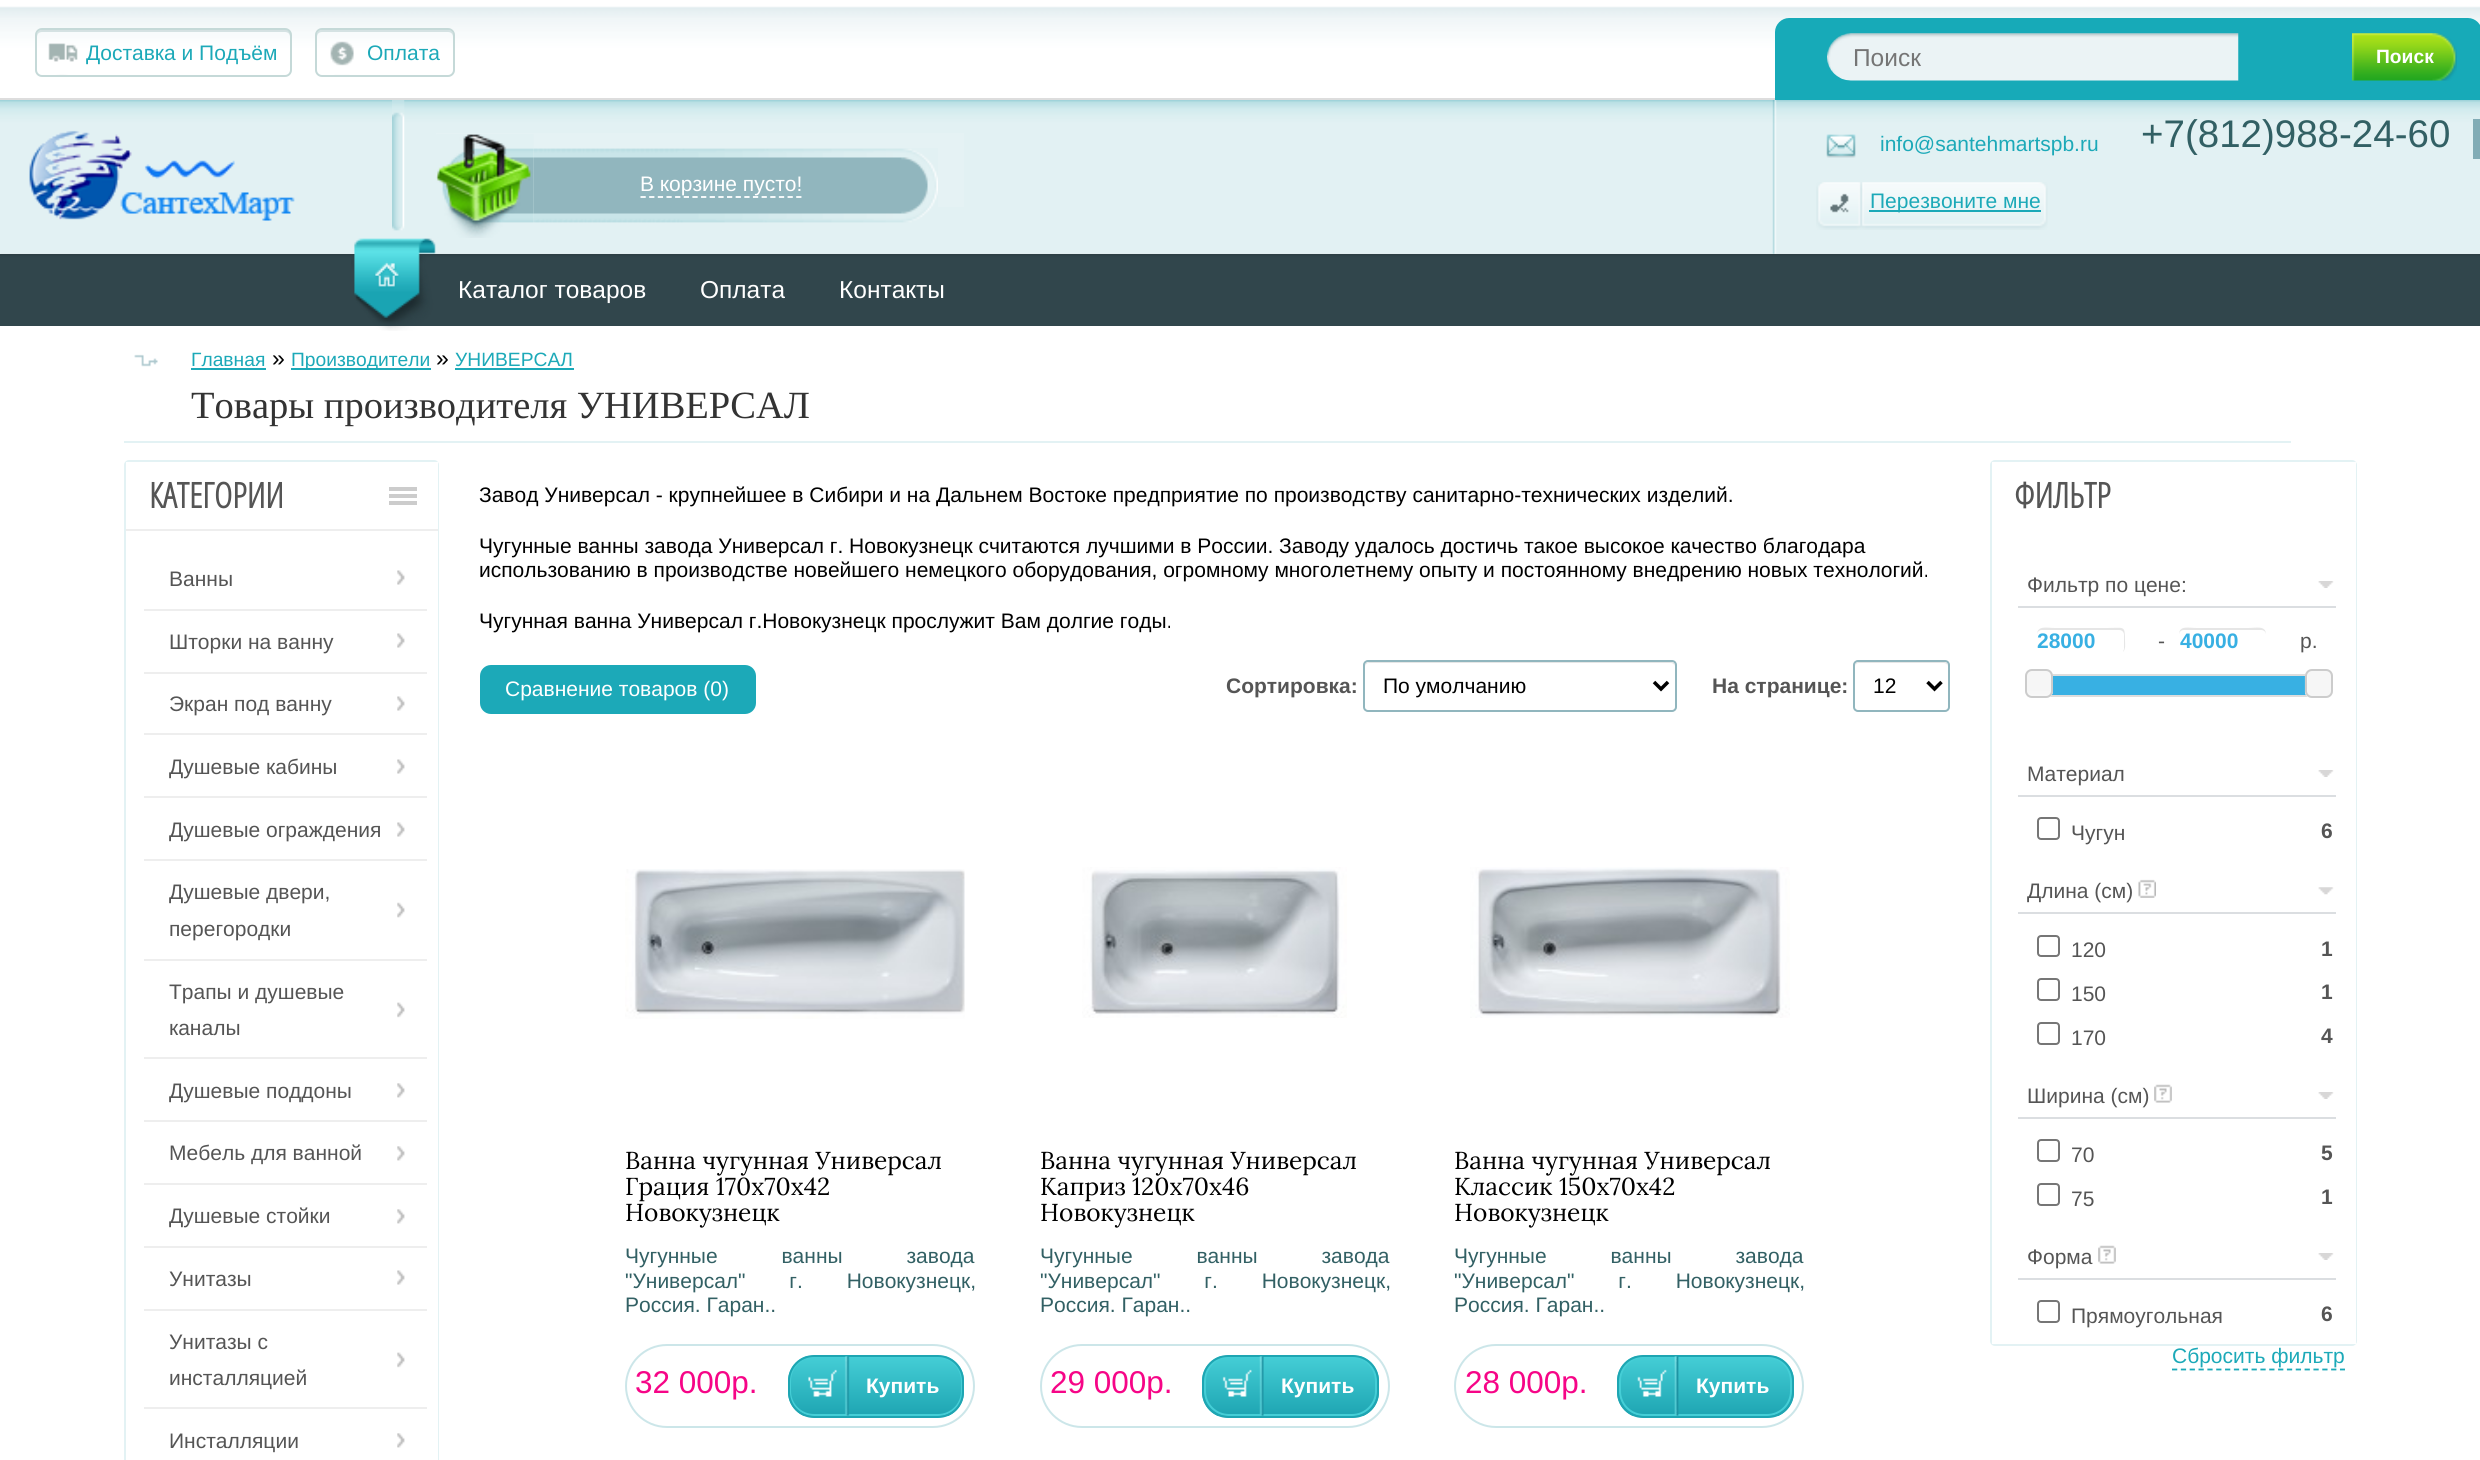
#include <cairo/cairo.h>
#include <math.h>
#include <stddef.h>


static void draw_spaced(cairo_t *cr, double x, double y, const char *s, double letter, double word) {
  cairo_move_to(cr, x, y);
  while (*s) {
    char ch[5] = {0};
    int n = 0;
    do ch[n++] = *s++; while ((*s & 0xC0) == 0x80);
    cairo_show_text(cr, ch);
    cairo_rel_move_to(cr, letter + word * (*ch == ' '), 0);
  }
}

static void rounded_rect(cairo_t *cr, double x, double y, double w, double h, double r) {
  cairo_new_sub_path(cr);
  cairo_arc(cr, x + w - r, y + h - r, r, 0, M_PI / 2);
  cairo_arc(cr, x + r, y + h - r, r, M_PI / 2, M_PI);
  cairo_arc(cr, x + r, y + r, r, M_PI, 1.5 * M_PI);
  cairo_arc(cr, x + w - r, y + r, r, 1.5 * M_PI, 2 * M_PI);
  cairo_close_path(cr);
}

static void draw_shadow(cairo_t *cr, double x, double y, double w, double h, double r, double blur, double alpha) {
  cairo_push_group_with_content(cr, CAIRO_CONTENT_ALPHA);
  cairo_set_operator(cr, CAIRO_OPERATOR_SOURCE);
  for (int i = 15; i >= -15 && fmin(w, h) + blur * i / 3 > 0; i -= 2) {
    double e = blur * i / 6;
    cairo_set_source_rgba(cr, 0, 0, 0, alpha * erfc((i - 1) / 8.5) / 2);
    rounded_rect(cr, x - e, y - e, w + 2 * e, h + 2 * e, fmax(0, fmin(r + e + blur * .6, fmin(w, h) / 2 + e)));
    cairo_fill(cr);
  }
  cairo_pattern_t *soft = cairo_pop_group(cr);
  cairo_mask(cr, soft);
  cairo_pattern_destroy(soft);
}

static void draw_image(cairo_t *cr, const char *path, double x, double y, double w, double h) {
  cairo_surface_t *image = cairo_image_surface_create_from_png(path);
  cairo_save(cr);
  cairo_set_source_surface(cr, image, x, y);
  cairo_rectangle(cr, x, y, w, h);
  cairo_fill(cr);
  cairo_restore(cr);
  cairo_surface_destroy(image);
}

static void draw(cairo_t *cr) {
  cairo_pattern_t *gradient;
  cairo_set_source_rgb(cr, 1, 1, 1);
  cairo_paint(cr);
  draw_image(cr, "images/1.png", 0, 6, 2480, 92);
  cairo_set_source_rgb(cr, 49 / 255.0, 70 / 255.0, 76 / 255.0);
  cairo_rectangle(cr, 0, 254, 2480, 72);
  cairo_fill(cr);
  cairo_set_source_rgb(cr, 0, 0, 0);
  draw_shadow(cr, 0, 102, 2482, 154, 0, 1, 0.1);
  cairo_set_source_rgb(cr, 221 / 255.0, 221 / 255.0, 221 / 255.0);
  cairo_rectangle(cr, 0, 98, 1775, 2);
  cairo_fill(cr);
  draw_image(cr, "images/2.png", 48, 43, 30, 32);
  cairo_set_source_rgba(cr, 62 / 255.0, 120 / 255.0, 117 / 255.0, 0.18);
  cairo_new_path(cr);
  cairo_move_to(cr, 42, 32);
  cairo_line_to(cr, 285, 32);
  cairo_curve_to(cr, 288, 32, 290, 34, 290, 37);
  cairo_line_to(cr, 290, 73);
  cairo_curve_to(cr, 291, 72, 291, 71, 291, 70);
  cairo_line_to(cr, 291, 35);
  cairo_curve_to(cr, 291, 32, 289, 30, 286, 30);
  cairo_line_to(cr, 42, 30);
  cairo_curve_to(cr, 39, 30, 37, 32, 37, 35);
  cairo_line_to(cr, 37, 37);
  cairo_curve_to(cr, 37, 34, 39, 32, 42, 32);
  cairo_close_path(cr);
  cairo_fill(cr);
  rounded_rect(cr, 36, 29, 255, 47, 6);
  cairo_set_source_rgb(cr, 197 / 255.0, 217 / 255.0, 216 / 255.0);
  cairo_stroke(cr);
  draw_image(cr, "images/3.png", 330, 41, 24, 34);
  cairo_set_source_rgb(cr, 213 / 255.0, 226 / 255.0, 227 / 255.0);
  cairo_new_path(cr);
  cairo_move_to(cr, 322, 32);
  cairo_line_to(cr, 448, 32);
  cairo_curve_to(cr, 451, 32, 453, 34, 453, 37);
  cairo_line_to(cr, 453, 35);
  cairo_curve_to(cr, 453, 32, 451, 30, 448, 30);
  cairo_line_to(cr, 322, 30);
  cairo_curve_to(cr, 319, 30, 317, 32, 317, 35);
  cairo_line_to(cr, 317, 37);
  cairo_curve_to(cr, 317, 34, 319, 32, 322, 32);
  cairo_close_path(cr);
  cairo_fill(cr);
  rounded_rect(cr, 316, 29, 138, 47, 6);
  cairo_set_source_rgb(cr, 197 / 255.0, 217 / 255.0, 216 / 255.0);
  cairo_stroke(cr);
  cairo_set_source_rgb(cr, 23 / 255.0, 170 / 255.0, 184 / 255.0);
  cairo_new_path(cr);
  cairo_move_to(cr, 1789, 18);
  cairo_line_to(cr, 2468, 18);
  cairo_curve_to(cr, 2475.5, 18, 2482, 24.5, 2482, 32);
  cairo_line_to(cr, 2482, 100);
  cairo_line_to(cr, 1775, 100);
  cairo_line_to(cr, 1775, 32);
  cairo_curve_to(cr, 1775, 24.5, 1781.5, 18, 1789, 18);
  cairo_close_path(cr);
  cairo_fill(cr);
  draw_image(cr, "images/4.png", 1827, 33, 412, 48);
  draw_image(cr, "images/5.png", 2352, 33, 105, 48);
  draw_image(cr, "images/6.png", 0, 100, 2480, 154);
  draw_image(cr, "images/7.png", 29, 130, 266, 91);
  draw_image(cr, "images/8.png", 392, 100, 13, 131);
  cairo_set_source_rgb(cr, 229 / 255.0, 242 / 255.0, 244 / 255.0);
  cairo_rectangle(cr, 436, 133, 528, 74);
  cairo_fill(cr);
  draw_image(cr, "images/9.png", 436, 134, 98, 104);
  draw_image(cr, "images/10.png", 533, 148, 405, 75);
  cairo_new_path(cr);
  cairo_move_to(cr, 640.5, 197);
  cairo_line_to(cr, 801.5, 197);
  cairo_set_source_rgb(cr, 1, 1, 1);
  cairo_set_line_width(cr, 1.8);
  cairo_set_dash(cr, (double[]){5.25, 3.4}, 2, 0);
  cairo_stroke(cr);
  draw_image(cr, "images/11.png", 1772, 100, 5, 154);
  draw_image(cr, "images/12.png", 1826, 134, 30, 24);
  draw_image(cr, "images/13.png", 1816, 182, 232, 48);
  cairo_set_source_rgb(cr, 28 / 255.0, 169 / 255.0, 184 / 255.0);
  cairo_rectangle(cr, 1869, 210, 172, 2);
  cairo_fill(cr);
  cairo_set_source_rgb(cr, 129 / 255.0, 172 / 255.0, 181 / 255.0);
  cairo_rectangle(cr, 2473, 119, 7, 40);
  cairo_fill(cr);
  draw_image(cr, "images/14.png", 351, 238, 85, 93);
  draw_image(cr, "images/15.png", 134, 354, 24, 13);
  cairo_set_source_rgb(cr, 227 / 255.0, 242 / 255.0, 244 / 255.0);
  cairo_rectangle(cr, 124, 441, 2167, 2);
  cairo_fill(cr);
  cairo_set_source_rgb(cr, 28 / 255.0, 169 / 255.0, 184 / 255.0);
  cairo_rectangle(cr, 191, 368, 75, 2);
  cairo_fill(cr);
  cairo_rectangle(cr, 291, 368, 140, 2);
  cairo_fill(cr);
  cairo_rectangle(cr, 455, 368, 119, 2);
  cairo_fill(cr);
  rounded_rect(cr, 125, 461, 313, 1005, 4);
  cairo_set_source_rgb(cr, 227 / 255.0, 242 / 255.0, 244 / 255.0);
  cairo_set_line_width(cr, 2);
  cairo_set_dash(cr, NULL, 0, 0);
  cairo_stroke(cr);
  cairo_set_source_rgb(cr, 1, 1, 1);
  cairo_rectangle(cr, 126, 462, 312, 67);
  cairo_fill(cr);
  cairo_set_source_rgb(cr, 238 / 255.0, 238 / 255.0, 238 / 255.0);
  cairo_rectangle(cr, 126, 529, 312, 2);
  cairo_fill(cr);
  cairo_set_source_rgb(cr, 204 / 255.0, 204 / 255.0, 204 / 255.0);
  cairo_rectangle(cr, 389, 501, 28, 4);
  cairo_fill(cr);
  cairo_rectangle(cr, 389, 494, 28, 4);
  cairo_fill(cr);
  cairo_rectangle(cr, 389, 487, 28, 4);
  cairo_fill(cr);
  cairo_set_source_rgb(cr, 1, 1, 1);
  cairo_rectangle(cr, 437, 531, 1, 929);
  cairo_fill(cr);
  draw_image(cr, "images/16.png", 397, 570, 8, 15);
  cairo_set_source_rgb(cr, 238 / 255.0, 238 / 255.0, 238 / 255.0);
  cairo_rectangle(cr, 144, 609, 283, 2);
  cairo_fill(cr);
  draw_image(cr, "images/16.png", 397, 633, 8, 15);
  cairo_rectangle(cr, 144, 672, 283, 2);
  cairo_fill(cr);
  draw_image(cr, "images/16.png", 397, 696, 8, 15);
  cairo_rectangle(cr, 144, 733, 283, 2);
  cairo_fill(cr);
  draw_image(cr, "images/16.png", 397, 759, 8, 15);
  cairo_rectangle(cr, 144, 796, 283, 2);
  cairo_fill(cr);
  draw_image(cr, "images/16.png", 397, 822, 8, 15);
  cairo_rectangle(cr, 144, 859, 283, 2);
  cairo_fill(cr);
  draw_image(cr, "images/17.png", 397, 902, 8, 16);
  cairo_rectangle(cr, 144, 959, 283, 2);
  cairo_fill(cr);
  draw_image(cr, "images/18.png", 397, 1002, 8, 16);
  cairo_rectangle(cr, 144, 1057, 283, 2);
  cairo_fill(cr);
  draw_image(cr, "images/19.png", 397, 1083, 8, 15);
  cairo_rectangle(cr, 144, 1120, 283, 2);
  cairo_fill(cr);
  draw_image(cr, "images/19.png", 397, 1146, 8, 15);
  cairo_rectangle(cr, 144, 1183, 283, 2);
  cairo_fill(cr);
  draw_image(cr, "images/19.png", 397, 1209, 8, 15);
  cairo_rectangle(cr, 144, 1246, 283, 2);
  cairo_fill(cr);
  draw_image(cr, "images/16.png", 397, 1270, 8, 15);
  cairo_rectangle(cr, 144, 1309, 283, 2);
  cairo_fill(cr);
  draw_image(cr, "images/18.png", 397, 1352, 8, 16);
  cairo_rectangle(cr, 144, 1407, 283, 2);
  cairo_fill(cr);
  draw_image(cr, "images/19.png", 397, 1433, 8, 15);
  cairo_set_source_rgb(cr, 28 / 255.0, 169 / 255.0, 184 / 255.0);
  rounded_rect(cr, 480, 665, 276, 49, 11);
  cairo_fill(cr);
  cairo_set_source_rgb(cr, 230 / 255.0, 230 / 255.0, 230 / 255.0);
  cairo_new_path(cr);
  cairo_move_to(cr, 1368, 663);
  cairo_line_to(cr, 1671, 663);
  cairo_curve_to(cr, 1673, 663, 1675, 665, 1675, 667);
  cairo_curve_to(cr, 1675, 664, 1674, 662, 1671, 662);
  cairo_line_to(cr, 1369, 662);
  cairo_line_to(cr, 1366, 663);
  cairo_curve_to(cr, 1365, 664, 1365, 666, 1365, 667);
  cairo_curve_to(cr, 1365, 665, 1367, 663, 1368, 663);
  cairo_close_path(cr);
  cairo_fill(cr);
  rounded_rect(cr, 1364, 661, 312, 50, 4);
  cairo_set_source_rgb(cr, 145 / 255.0, 182 / 255.0, 190 / 255.0);
  cairo_stroke(cr);
  cairo_new_path(cr);
  cairo_move_to(cr, 1654, 682);
  cairo_line_to(cr, 1661, 689);
  cairo_line_to(cr, 1668, 682);
  cairo_set_source_rgb(cr, 0, 0, 0);
  cairo_set_line_width(cr, 3.5);
  cairo_stroke(cr);
  cairo_set_source_rgb(cr, 230 / 255.0, 230 / 255.0, 230 / 255.0);
  cairo_new_path(cr);
  cairo_move_to(cr, 1858, 663);
  cairo_line_to(cr, 1944, 663);
  cairo_curve_to(cr, 1946, 663, 1948, 665, 1948, 667);
  cairo_curve_to(cr, 1948, 658, 1934, 662, 1930, 662);
  cairo_line_to(cr, 1873, 662);
  cairo_curve_to(cr, 1869, 662, 1855, 658, 1855, 667);
  cairo_curve_to(cr, 1855, 665, 1857, 663, 1858, 663);
  cairo_close_path(cr);
  cairo_fill(cr);
  rounded_rect(cr, 1854, 661, 95, 50, 4);
  cairo_set_source_rgb(cr, 145 / 255.0, 182 / 255.0, 190 / 255.0);
  cairo_set_line_width(cr, 2);
  cairo_stroke(cr);
  cairo_new_path(cr);
  cairo_move_to(cr, 1927.5, 682);
  cairo_line_to(cr, 1934.5, 689);
  cairo_line_to(cr, 1941.5, 682);
  cairo_set_source_rgb(cr, 0, 0, 0);
  cairo_set_line_width(cr, 3.5);
  cairo_stroke(cr);
  draw_image(cr, "images/20.png", 625, 869, 340, 150);
  rounded_rect(cr, 626, 1345, 348, 82, 41);
  cairo_set_source_rgb(cr, 204 / 255.0, 230 / 255.0, 233 / 255.0);
  cairo_set_line_width(cr, 2);
  cairo_stroke(cr);
  cairo_save(cr);
  rounded_rect(cr, 788, 1355, 176, 63, 26);
  cairo_clip(cr);
  gradient = cairo_pattern_create_linear(876, 1356, 876, 1416);
  cairo_pattern_add_color_stop_rgba(gradient, 0, 69 / 255.0, 206 / 255.0, 214 / 255.0, 1);
  cairo_pattern_add_color_stop_rgba(gradient, 1, 30 / 255.0, 165 / 255.0, 178 / 255.0, 1);
  cairo_set_source(cr, gradient);
  cairo_pattern_destroy(gradient);
  cairo_rectangle(cr, 788, 1356, 176, 60);
  cairo_fill(cr);
  cairo_restore(cr);
  rounded_rect(cr, 790, 1357, 172, 58, 24);
  cairo_set_source_rgb(cr, 69 / 255.0, 206 / 255.0, 214 / 255.0);
  cairo_stroke(cr);
  rounded_rect(cr, 789, 1356, 174, 61, 25);
  cairo_set_source_rgb(cr, 30 / 255.0, 165 / 255.0, 178 / 255.0);
  cairo_stroke(cr);
  draw_image(cr, "images/21.png", 808, 1356, 42, 60);
  draw_image(cr, "images/22.png", 1082, 867, 265, 151);
  rounded_rect(cr, 1041, 1345, 348, 82, 41);
  cairo_set_source_rgb(cr, 204 / 255.0, 230 / 255.0, 233 / 255.0);
  cairo_stroke(cr);
  cairo_save(cr);
  rounded_rect(cr, 1202, 1355, 177, 63, 26);
  cairo_clip(cr);
  gradient = cairo_pattern_create_linear(1291, 1356, 1291, 1416);
  cairo_pattern_add_color_stop_rgba(gradient, 0, 69 / 255.0, 206 / 255.0, 214 / 255.0, 1);
  cairo_pattern_add_color_stop_rgba(gradient, 1, 30 / 255.0, 165 / 255.0, 178 / 255.0, 1);
  cairo_set_source(cr, gradient);
  cairo_pattern_destroy(gradient);
  cairo_rectangle(cr, 1202, 1356, 177, 60);
  cairo_fill(cr);
  cairo_restore(cr);
  rounded_rect(cr, 1205, 1357, 171, 58, 24);
  cairo_set_source_rgb(cr, 69 / 255.0, 206 / 255.0, 214 / 255.0);
  cairo_stroke(cr);
  rounded_rect(cr, 1203, 1356, 175, 61, 25);
  cairo_set_source_rgb(cr, 30 / 255.0, 165 / 255.0, 178 / 255.0);
  cairo_stroke(cr);
  draw_image(cr, "images/23.png", 1222, 1356, 42, 60);
  draw_image(cr, "images/24.png", 1470, 867, 320, 151);
  rounded_rect(cr, 1455, 1345, 348, 82, 41);
  cairo_set_source_rgb(cr, 204 / 255.0, 230 / 255.0, 233 / 255.0);
  cairo_stroke(cr);
  cairo_save(cr);
  rounded_rect(cr, 1617, 1355, 177, 63, 26);
  cairo_clip(cr);
  gradient = cairo_pattern_create_linear(1705, 1356, 1705, 1416);
  cairo_pattern_add_color_stop_rgba(gradient, 0, 69 / 255.0, 206 / 255.0, 214 / 255.0, 1);
  cairo_pattern_add_color_stop_rgba(gradient, 1, 30 / 255.0, 165 / 255.0, 178 / 255.0, 1);
  cairo_set_source(cr, gradient);
  cairo_pattern_destroy(gradient);
  cairo_rectangle(cr, 1617, 1356, 177, 60);
  cairo_fill(cr);
  cairo_restore(cr);
  rounded_rect(cr, 1620, 1357, 171, 58, 24);
  cairo_set_source_rgb(cr, 69 / 255.0, 206 / 255.0, 214 / 255.0);
  cairo_stroke(cr);
  rounded_rect(cr, 1618, 1356, 175, 61, 25);
  cairo_set_source_rgb(cr, 30 / 255.0, 165 / 255.0, 178 / 255.0);
  cairo_stroke(cr);
  draw_image(cr, "images/25.png", 1637, 1356, 42, 60);
  rounded_rect(cr, 1991, 461, 365, 884, 4);
  cairo_set_source_rgb(cr, 227 / 255.0, 242 / 255.0, 244 / 255.0);
  cairo_stroke(cr);
  cairo_set_source_rgb(cr, 1, 1, 1);
  cairo_rectangle(cr, 1992, 462, 364, 882);
  cairo_fill(cr);
  draw_image(cr, "images/26.png", 2318, 581, 16, 7);
  cairo_set_source_rgb(cr, 219 / 255.0, 222 / 255.0, 225 / 255.0);
  cairo_rectangle(cr, 2018, 606, 318, 2);
  cairo_fill(cr);
  cairo_set_source_rgb(cr, 230 / 255.0, 230 / 255.0, 230 / 255.0);
  cairo_new_path(cr);
  cairo_move_to(cr, 2042, 630);
  cairo_line_to(cr, 2119, 630);
  cairo_curve_to(cr, 2122, 630, 2124, 632, 2124, 635);
  cairo_line_to(cr, 2124, 649);
  cairo_line_to(cr, 2123, 652);
  cairo_curve_to(cr, 2126, 649, 2125, 644, 2125, 640);
  cairo_curve_to(cr, 2125, 625, 2124, 628, 2107, 628);
  cairo_line_to(cr, 2055, 628);
  cairo_curve_to(cr, 2047, 628, 2037, 625, 2037, 635);
  cairo_curve_to(cr, 2037, 632, 2039, 630, 2042, 630);
  cairo_close_path(cr);
  cairo_fill(cr);
  cairo_new_path(cr);
  cairo_move_to(cr, 2184, 630);
  cairo_line_to(cr, 2261, 630);
  cairo_curve_to(cr, 2264, 630, 2266, 632, 2266, 635);
  cairo_curve_to(cr, 2266, 625, 2257, 628, 2248, 628);
  cairo_line_to(cr, 2197, 628);
  cairo_curve_to(cr, 2188, 628, 2179, 625, 2179, 635);
  cairo_curve_to(cr, 2179, 632, 2181, 630, 2184, 630);
  cairo_close_path(cr);
  cairo_fill(cr);
  cairo_rectangle(cr, 2036, 675, 282, 21);
  cairo_set_source_rgb(cr, 221 / 255.0, 221 / 255.0, 221 / 255.0);
  cairo_stroke(cr);
  cairo_set_source_rgb(cr, 56 / 255.0, 176 / 255.0, 227 / 255.0);
  cairo_rectangle(cr, 2051, 676, 255, 19);
  cairo_fill(cr);
  cairo_set_source_rgb(cr, 246 / 255.0, 246 / 255.0, 246 / 255.0);
  rounded_rect(cr, 2025, 669, 28, 29, 7);
  cairo_fill(cr);
  draw_image(cr, "images/27.png", 2027, 691, 26, 6);
  rounded_rect(cr, 2026, 670, 26, 27, 6);
  cairo_set_source_rgb(cr, 204 / 255.0, 204 / 255.0, 204 / 255.0);
  cairo_stroke(cr);
  cairo_set_source_rgb(cr, 246 / 255.0, 246 / 255.0, 246 / 255.0);
  rounded_rect(cr, 2305, 669, 28, 29, 7);
  cairo_fill(cr);
  draw_image(cr, "images/28.png", 2304, 674, 4, 23);
  rounded_rect(cr, 2306, 670, 26, 27, 6);
  cairo_set_source_rgb(cr, 204 / 255.0, 204 / 255.0, 204 / 255.0);
  cairo_stroke(cr);
  draw_image(cr, "images/26.png", 2318, 770, 16, 7);
  cairo_set_source_rgb(cr, 219 / 255.0, 222 / 255.0, 225 / 255.0);
  cairo_rectangle(cr, 2018, 795, 318, 2);
  cairo_fill(cr);
  rounded_rect(cr, 2038, 818, 21, 21, 3);
  cairo_set_source_rgb(cr, 118 / 255.0, 118 / 255.0, 118 / 255.0);
  cairo_stroke(cr);
  draw_image(cr, "images/29.png", 2318, 887, 16, 8);
  cairo_set_source_rgb(cr, 219 / 255.0, 222 / 255.0, 225 / 255.0);
  cairo_rectangle(cr, 2018, 912, 318, 2);
  cairo_fill(cr);
  draw_image(cr, "images/30.png", 2138, 879, 18, 19);
  rounded_rect(cr, 2038, 936, 21, 20, 3);
  cairo_set_source_rgb(cr, 118 / 255.0, 118 / 255.0, 118 / 255.0);
  cairo_stroke(cr);
  rounded_rect(cr, 2038, 979, 21, 21, 3);
  cairo_stroke(cr);
  rounded_rect(cr, 2038, 1023, 21, 21, 3);
  cairo_stroke(cr);
  draw_image(cr, "images/26.png", 2318, 1092, 16, 7);
  cairo_set_source_rgb(cr, 219 / 255.0, 222 / 255.0, 225 / 255.0);
  cairo_rectangle(cr, 2018, 1117, 318, 2);
  cairo_fill(cr);
  draw_image(cr, "images/31.png", 2154, 1084, 18, 19);
  rounded_rect(cr, 2038, 1140, 21, 21, 3);
  cairo_set_source_rgb(cr, 118 / 255.0, 118 / 255.0, 118 / 255.0);
  cairo_stroke(cr);
  rounded_rect(cr, 2038, 1184, 21, 21, 3);
  cairo_stroke(cr);
  draw_image(cr, "images/26.png", 2318, 1253, 16, 7);
  cairo_set_source_rgb(cr, 219 / 255.0, 222 / 255.0, 225 / 255.0);
  cairo_rectangle(cr, 2018, 1278, 318, 2);
  cairo_fill(cr);
  draw_image(cr, "images/31.png", 2098, 1245, 18, 19);
  rounded_rect(cr, 2038, 1301, 21, 21, 3);
  cairo_set_source_rgb(cr, 118 / 255.0, 118 / 255.0, 118 / 255.0);
  cairo_stroke(cr);
  cairo_new_path(cr);
  cairo_move_to(cr, 2172, 1369.5);
  cairo_line_to(cr, 2345, 1369.5);
  cairo_set_source_rgb(cr, 28 / 255.0, 169 / 255.0, 184 / 255.0);
  cairo_set_line_width(cr, 1.8);
  cairo_set_dash(cr, (double[]){5.25, 3.59}, 2, 0);
  cairo_stroke(cr);
  cairo_select_font_face(cr, "Liberation Sans", CAIRO_FONT_SLANT_NORMAL, CAIRO_FONT_WEIGHT_NORMAL);
  cairo_set_font_size(cr, 21);
  cairo_move_to(cr, 86, 60);
  cairo_show_text(cr, "Доставка и Подъём");
  cairo_move_to(cr, 367, 60);
  cairo_show_text(cr, "Оплата");
  cairo_set_font_size(cr, 24.5);
  cairo_set_source_rgb(cr, 117 / 255.0, 117 / 255.0, 117 / 255.0);
  cairo_move_to(cr, 1853, 66);
  cairo_show_text(cr, "Поиск");
  cairo_select_font_face(cr, "Liberation Sans", CAIRO_FONT_SLANT_NORMAL, CAIRO_FONT_WEIGHT_BOLD);
  cairo_set_font_size(cr, 19.25);
  cairo_set_source_rgb(cr, 1, 1, 1);
  cairo_move_to(cr, 2376, 63);
  cairo_show_text(cr, "Поиск");
  cairo_select_font_face(cr, "Liberation Sans", CAIRO_FONT_SLANT_NORMAL, CAIRO_FONT_WEIGHT_NORMAL);
  cairo_set_font_size(cr, 21);
  cairo_move_to(cr, 640, 191);
  cairo_show_text(cr, "В корзине пусто!");
  cairo_set_source_rgb(cr, 28 / 255.0, 169 / 255.0, 184 / 255.0);
  cairo_move_to(cr, 1880, 151);
  cairo_show_text(cr, "info@santehmartspb.ru");
  cairo_move_to(cr, 1870, 208);
  cairo_show_text(cr, "Перезвоните мне");
  cairo_set_font_size(cr, 38.5);
  cairo_set_source_rgb(cr, 50 / 255.0, 96 / 255.0, 100 / 255.0);
  cairo_move_to(cr, 2141, 147);
  cairo_show_text(cr, "+7(812)988-24-60");
  cairo_set_font_size(cr, 24.5);
  cairo_set_source_rgb(cr, 1, 1, 1);
  cairo_move_to(cr, 458, 298);
  cairo_show_text(cr, "Каталог товаров");
  cairo_move_to(cr, 700, 298);
  cairo_show_text(cr, "Оплата");
  cairo_move_to(cr, 839, 298);
  cairo_show_text(cr, "Контакты");
  cairo_set_font_size(cr, 19.25);
  cairo_set_source_rgb(cr, 28 / 255.0, 169 / 255.0, 184 / 255.0);
  cairo_move_to(cr, 191, 366);
  cairo_show_text(cr, "Главная");
  cairo_set_font_size(cr, 23);
  cairo_set_source_rgb(cr, 0, 0, 0);
  cairo_move_to(cr, 272, 366);
  cairo_show_text(cr, "»");
  cairo_set_font_size(cr, 19.25);
  cairo_set_source_rgb(cr, 28 / 255.0, 169 / 255.0, 184 / 255.0);
  cairo_move_to(cr, 291, 366);
  cairo_show_text(cr, "Производители");
  cairo_set_font_size(cr, 23);
  cairo_set_source_rgb(cr, 0, 0, 0);
  cairo_move_to(cr, 436, 366);
  cairo_show_text(cr, "»");
  cairo_set_font_size(cr, 19.25);
  cairo_set_source_rgb(cr, 28 / 255.0, 169 / 255.0, 184 / 255.0);
  cairo_move_to(cr, 455, 366);
  cairo_show_text(cr, "УНИВЕРСАЛ");
  cairo_select_font_face(cr, "Liberation Serif", CAIRO_FONT_SLANT_NORMAL, CAIRO_FONT_WEIGHT_NORMAL);
  cairo_set_font_size(cr, 38.5);
  cairo_set_source_rgb(cr, 51 / 255.0, 51 / 255.0, 51 / 255.0);
  cairo_move_to(cr, 191, 418);
  cairo_show_text(cr, "Товары производителя УНИВЕРСАЛ");
  cairo_select_font_face(cr, "Open Sans", CAIRO_FONT_SLANT_NORMAL, CAIRO_FONT_WEIGHT_BOLD);
  cairo_set_font_size(cr, 35);
  cairo_set_source_rgb(cr, 85 / 255.0, 85 / 255.0, 85 / 255.0);
  cairo_move_to(cr, 149, 508);
  cairo_show_text(cr, "КАТЕГОРИИ");
  cairo_select_font_face(cr, "Liberation Sans", CAIRO_FONT_SLANT_NORMAL, CAIRO_FONT_WEIGHT_NORMAL);
  cairo_set_font_size(cr, 21);
  cairo_move_to(cr, 169, 586);
  cairo_show_text(cr, "Ванны");
  cairo_move_to(cr, 169, 649);
  cairo_show_text(cr, "Шторки на ванну");
  cairo_move_to(cr, 169, 711);
  cairo_show_text(cr, "Экран под ванну");
  cairo_move_to(cr, 169, 774);
  cairo_show_text(cr, "Душевые кабины");
  cairo_move_to(cr, 169, 837);
  cairo_show_text(cr, "Душевые ограждения");
  cairo_move_to(cr, 169, 899);
  cairo_show_text(cr, "Душевые двери,");
  cairo_move_to(cr, 169, 936);
  cairo_show_text(cr, "перегородки");
  cairo_move_to(cr, 169, 999);
  cairo_show_text(cr, "Трапы и душевые");
  cairo_move_to(cr, 169, 1035);
  cairo_show_text(cr, "каналы");
  cairo_move_to(cr, 169, 1098);
  cairo_show_text(cr, "Душевые поддоны");
  cairo_move_to(cr, 169, 1160);
  cairo_show_text(cr, "Мебель для ванной");
  cairo_move_to(cr, 169, 1223);
  cairo_show_text(cr, "Душевые стойки");
  cairo_move_to(cr, 169, 1286);
  cairo_show_text(cr, "Унитазы");
  cairo_move_to(cr, 169, 1349);
  cairo_show_text(cr, "Унитазы с");
  cairo_move_to(cr, 169, 1385);
  cairo_show_text(cr, "инсталляцией");
  cairo_move_to(cr, 169, 1448);
  cairo_show_text(cr, "Инсталляции");
  cairo_set_source_rgb(cr, 0, 0, 0);
  cairo_move_to(cr, 479, 502);
  cairo_show_text(cr, "Завод Универсал - крупнейшее в Сибири и на Дальнем Востоке предприятие по производству санитарно-технических изделий.");
  cairo_move_to(cr, 479, 553);
  cairo_show_text(cr, "Чугунные ванны завода Универсал г. Новокузнецк считаются лучшими в России. Заводу удалось достичь такое высокое качество благодара");
  cairo_move_to(cr, 479, 577);
  cairo_show_text(cr, "использованию в производстве новейшего немецкого оборудования, огромному многолетнему опыту и постоянному внедрению новых технологий.");
  cairo_move_to(cr, 479, 628);
  cairo_show_text(cr, "Чугунная ванна Универсал г.Новокузнецк прослужит Вам долгие годы.");
  cairo_set_source_rgb(cr, 1, 1, 1);
  cairo_move_to(cr, 505, 696);
  cairo_show_text(cr, "Сравнение товаров (0)");
  cairo_select_font_face(cr, "Liberation Sans", CAIRO_FONT_SLANT_NORMAL, CAIRO_FONT_WEIGHT_BOLD);
  cairo_set_source_rgb(cr, 85 / 255.0, 85 / 255.0, 85 / 255.0);
  cairo_move_to(cr, 1226, 693);
  cairo_show_text(cr, "Сортировка:");
  cairo_select_font_face(cr, "Liberation Sans", CAIRO_FONT_SLANT_NORMAL, CAIRO_FONT_WEIGHT_NORMAL);
  cairo_set_source_rgb(cr, 0, 0, 0);
  cairo_move_to(cr, 1383, 693);
  cairo_show_text(cr, "По умолчанию");
  cairo_select_font_face(cr, "Liberation Sans", CAIRO_FONT_SLANT_NORMAL, CAIRO_FONT_WEIGHT_BOLD);
  cairo_set_source_rgb(cr, 85 / 255.0, 85 / 255.0, 85 / 255.0);
  cairo_move_to(cr, 1712, 693);
  cairo_show_text(cr, "На странице:");
  cairo_select_font_face(cr, "Liberation Sans", CAIRO_FONT_SLANT_NORMAL, CAIRO_FONT_WEIGHT_NORMAL);
  cairo_set_source_rgb(cr, 0, 0, 0);
  cairo_move_to(cr, 1873, 693);
  cairo_show_text(cr, "12");
  cairo_select_font_face(cr, "Lora", CAIRO_FONT_SLANT_NORMAL, CAIRO_FONT_WEIGHT_NORMAL);
  cairo_set_font_size(cr, 24.5);
  cairo_move_to(cr, 625, 1169);
  cairo_show_text(cr, "Ванна чугунная Универсал");
  cairo_move_to(cr, 625, 1195);
  cairo_show_text(cr, "Грация 170х70х42");
  cairo_move_to(cr, 625, 1221);
  cairo_show_text(cr, "Новокузнецк");
  cairo_select_font_face(cr, "Liberation Sans", CAIRO_FONT_SLANT_NORMAL, CAIRO_FONT_WEIGHT_NORMAL);
  cairo_set_font_size(cr, 21);
  cairo_set_source_rgb(cr, 50 / 255.0, 96 / 255.0, 100 / 255.0);
  draw_spaced(cr, 625, 1263, "Чугунные ванны завода", 0, 58);
  draw_spaced(cr, 625, 1288, "\"Универсал\" г. Новокузнецк,", 0, 38);
  cairo_move_to(cr, 625, 1312);
  cairo_show_text(cr, "Россия. Гаран..");
  cairo_set_font_size(cr, 31.5);
  cairo_set_source_rgb(cr, 246 / 255.0, 5 / 255.0, 135 / 255.0);
  cairo_move_to(cr, 635, 1393);
  cairo_show_text(cr, "32 000р.");
  cairo_select_font_face(cr, "Liberation Sans", CAIRO_FONT_SLANT_NORMAL, CAIRO_FONT_WEIGHT_BOLD);
  cairo_set_font_size(cr, 21);
  cairo_set_source_rgb(cr, 1, 1, 1);
  cairo_move_to(cr, 866, 1393);
  cairo_show_text(cr, "Купить");
  cairo_select_font_face(cr, "Lora", CAIRO_FONT_SLANT_NORMAL, CAIRO_FONT_WEIGHT_NORMAL);
  cairo_set_font_size(cr, 24.5);
  cairo_set_source_rgb(cr, 0, 0, 0);
  cairo_move_to(cr, 1040, 1169);
  cairo_show_text(cr, "Ванна чугунная Универсал");
  cairo_move_to(cr, 1040, 1195);
  cairo_show_text(cr, "Каприз 120х70х46");
  cairo_move_to(cr, 1040, 1221);
  cairo_show_text(cr, "Новокузнецк");
  cairo_select_font_face(cr, "Liberation Sans", CAIRO_FONT_SLANT_NORMAL, CAIRO_FONT_WEIGHT_NORMAL);
  cairo_set_font_size(cr, 21);
  cairo_set_source_rgb(cr, 50 / 255.0, 96 / 255.0, 100 / 255.0);
  draw_spaced(cr, 1040, 1263, "Чугунные ванны завода", 0, 58);
  draw_spaced(cr, 1040, 1288, "\"Универсал\" г. Новокузнецк,", 0, 38);
  cairo_move_to(cr, 1040, 1312);
  cairo_show_text(cr, "Россия. Гаран..");
  cairo_set_font_size(cr, 31.5);
  cairo_set_source_rgb(cr, 246 / 255.0, 5 / 255.0, 135 / 255.0);
  cairo_move_to(cr, 1050, 1393);
  cairo_show_text(cr, "29 000р.");
  cairo_select_font_face(cr, "Liberation Sans", CAIRO_FONT_SLANT_NORMAL, CAIRO_FONT_WEIGHT_BOLD);
  cairo_set_font_size(cr, 21);
  cairo_set_source_rgb(cr, 1, 1, 1);
  cairo_move_to(cr, 1281, 1393);
  cairo_show_text(cr, "Купить");
  cairo_select_font_face(cr, "Lora", CAIRO_FONT_SLANT_NORMAL, CAIRO_FONT_WEIGHT_NORMAL);
  cairo_set_font_size(cr, 24.5);
  cairo_set_source_rgb(cr, 0, 0, 0);
  cairo_move_to(cr, 1454, 1169);
  cairo_show_text(cr, "Ванна чугунная Универсал");
  cairo_move_to(cr, 1454, 1195);
  cairo_show_text(cr, "Классик 150х70х42");
  cairo_move_to(cr, 1454, 1221);
  cairo_show_text(cr, "Новокузнецк");
  cairo_select_font_face(cr, "Liberation Sans", CAIRO_FONT_SLANT_NORMAL, CAIRO_FONT_WEIGHT_NORMAL);
  cairo_set_font_size(cr, 21);
  cairo_set_source_rgb(cr, 50 / 255.0, 96 / 255.0, 100 / 255.0);
  draw_spaced(cr, 1454, 1263, "Чугунные ванны завода", 0, 58);
  draw_spaced(cr, 1454, 1288, "\"Универсал\" г. Новокузнецк,", 0, 38);
  cairo_move_to(cr, 1454, 1312);
  cairo_show_text(cr, "Россия. Гаран..");
  cairo_set_font_size(cr, 31.5);
  cairo_set_source_rgb(cr, 246 / 255.0, 5 / 255.0, 135 / 255.0);
  cairo_move_to(cr, 1465, 1393);
  cairo_show_text(cr, "28 000р.");
  cairo_select_font_face(cr, "Liberation Sans", CAIRO_FONT_SLANT_NORMAL, CAIRO_FONT_WEIGHT_BOLD);
  cairo_set_font_size(cr, 21);
  cairo_set_source_rgb(cr, 1, 1, 1);
  cairo_move_to(cr, 1696, 1393);
  cairo_show_text(cr, "Купить");
  cairo_select_font_face(cr, "Open Sans", CAIRO_FONT_SLANT_NORMAL, CAIRO_FONT_WEIGHT_BOLD);
  cairo_set_font_size(cr, 35);
  cairo_set_source_rgb(cr, 85 / 255.0, 85 / 255.0, 85 / 255.0);
  cairo_move_to(cr, 2014, 508);
  cairo_show_text(cr, "ФИЛЬТР");
  cairo_select_font_face(cr, "Liberation Sans", CAIRO_FONT_SLANT_NORMAL, CAIRO_FONT_WEIGHT_NORMAL);
  cairo_set_font_size(cr, 21);
  cairo_move_to(cr, 2027, 592);
  cairo_show_text(cr, "Фильтр по цене:");
  cairo_select_font_face(cr, "Liberation Sans", CAIRO_FONT_SLANT_NORMAL, CAIRO_FONT_WEIGHT_BOLD);
  cairo_set_source_rgb(cr, 56 / 255.0, 176 / 255.0, 227 / 255.0);
  cairo_move_to(cr, 2037, 648);
  cairo_show_text(cr, "28000");
  cairo_select_font_face(cr, "Liberation Sans", CAIRO_FONT_SLANT_NORMAL, CAIRO_FONT_WEIGHT_NORMAL);
  cairo_set_source_rgb(cr, 85 / 255.0, 85 / 255.0, 85 / 255.0);
  cairo_move_to(cr, 2158, 648);
  cairo_show_text(cr, "-");
  cairo_select_font_face(cr, "Liberation Sans", CAIRO_FONT_SLANT_NORMAL, CAIRO_FONT_WEIGHT_BOLD);
  cairo_set_source_rgb(cr, 56 / 255.0, 176 / 255.0, 227 / 255.0);
  cairo_move_to(cr, 2180, 648);
  cairo_show_text(cr, "40000");
  cairo_select_font_face(cr, "Liberation Sans", CAIRO_FONT_SLANT_NORMAL, CAIRO_FONT_WEIGHT_NORMAL);
  cairo_set_source_rgb(cr, 85 / 255.0, 85 / 255.0, 85 / 255.0);
  cairo_move_to(cr, 2300, 648);
  cairo_show_text(cr, "р.");
  cairo_move_to(cr, 2027, 781);
  cairo_show_text(cr, "Материал");
  cairo_move_to(cr, 2071, 840);
  cairo_show_text(cr, "Чугун");
  cairo_select_font_face(cr, "Liberation Sans", CAIRO_FONT_SLANT_NORMAL, CAIRO_FONT_WEIGHT_BOLD);
  cairo_move_to(cr, 2321, 838);
  cairo_show_text(cr, "6");
  cairo_select_font_face(cr, "Liberation Sans", CAIRO_FONT_SLANT_NORMAL, CAIRO_FONT_WEIGHT_NORMAL);
  cairo_move_to(cr, 2027, 898);
  cairo_show_text(cr, "Длина (см)");
  cairo_move_to(cr, 2071, 957);
  cairo_show_text(cr, "120");
  cairo_select_font_face(cr, "Liberation Sans", CAIRO_FONT_SLANT_NORMAL, CAIRO_FONT_WEIGHT_BOLD);
  cairo_move_to(cr, 2321, 956);
  cairo_show_text(cr, "1");
  cairo_select_font_face(cr, "Liberation Sans", CAIRO_FONT_SLANT_NORMAL, CAIRO_FONT_WEIGHT_NORMAL);
  cairo_move_to(cr, 2071, 1001);
  cairo_show_text(cr, "150");
  cairo_select_font_face(cr, "Liberation Sans", CAIRO_FONT_SLANT_NORMAL, CAIRO_FONT_WEIGHT_BOLD);
  cairo_move_to(cr, 2321, 999);
  cairo_show_text(cr, "1");
  cairo_select_font_face(cr, "Liberation Sans", CAIRO_FONT_SLANT_NORMAL, CAIRO_FONT_WEIGHT_NORMAL);
  cairo_move_to(cr, 2071, 1045);
  cairo_show_text(cr, "170");
  cairo_select_font_face(cr, "Liberation Sans", CAIRO_FONT_SLANT_NORMAL, CAIRO_FONT_WEIGHT_BOLD);
  cairo_move_to(cr, 2321, 1043);
  cairo_show_text(cr, "4");
  cairo_select_font_face(cr, "Liberation Sans", CAIRO_FONT_SLANT_NORMAL, CAIRO_FONT_WEIGHT_NORMAL);
  cairo_move_to(cr, 2027, 1103);
  cairo_show_text(cr, "Ширина (см)");
  cairo_move_to(cr, 2071, 1162);
  cairo_show_text(cr, "70");
  cairo_select_font_face(cr, "Liberation Sans", CAIRO_FONT_SLANT_NORMAL, CAIRO_FONT_WEIGHT_BOLD);
  cairo_move_to(cr, 2321, 1160);
  cairo_show_text(cr, "5");
  cairo_select_font_face(cr, "Liberation Sans", CAIRO_FONT_SLANT_NORMAL, CAIRO_FONT_WEIGHT_NORMAL);
  cairo_move_to(cr, 2071, 1206);
  cairo_show_text(cr, "75");
  cairo_select_font_face(cr, "Liberation Sans", CAIRO_FONT_SLANT_NORMAL, CAIRO_FONT_WEIGHT_BOLD);
  cairo_move_to(cr, 2321, 1204);
  cairo_show_text(cr, "1");
  cairo_select_font_face(cr, "Liberation Sans", CAIRO_FONT_SLANT_NORMAL, CAIRO_FONT_WEIGHT_NORMAL);
  cairo_move_to(cr, 2027, 1264);
  cairo_show_text(cr, "Форма");
  cairo_move_to(cr, 2071, 1323);
  cairo_show_text(cr, "Прямоугольная");
  cairo_select_font_face(cr, "Liberation Sans", CAIRO_FONT_SLANT_NORMAL, CAIRO_FONT_WEIGHT_BOLD);
  cairo_move_to(cr, 2321, 1321);
  cairo_show_text(cr, "6");
  cairo_select_font_face(cr, "Liberation Sans", CAIRO_FONT_SLANT_NORMAL, CAIRO_FONT_WEIGHT_NORMAL);
  cairo_set_source_rgb(cr, 28 / 255.0, 169 / 255.0, 184 / 255.0);
  cairo_move_to(cr, 2172, 1363);
  cairo_show_text(cr, "Сбросить фильтр");
}

int main(void) {
  cairo_surface_t *surface = cairo_image_surface_create(CAIRO_FORMAT_RGB24, 2480, 1460);
  cairo_t *cr = cairo_create(surface);
  cairo_font_options_t *options = cairo_font_options_create();
  cairo_font_options_set_hint_metrics(options, CAIRO_HINT_METRICS_OFF);
  cairo_font_options_set_hint_style(options, CAIRO_HINT_STYLE_NONE);
  cairo_set_font_options(cr, options);
  cairo_set_miter_limit(cr, 4);
  draw(cr);
  cairo_surface_write_to_png(surface, "out.png");
  cairo_font_options_destroy(options);
  cairo_destroy(cr);
  cairo_surface_destroy(surface);
  return 0;
}
